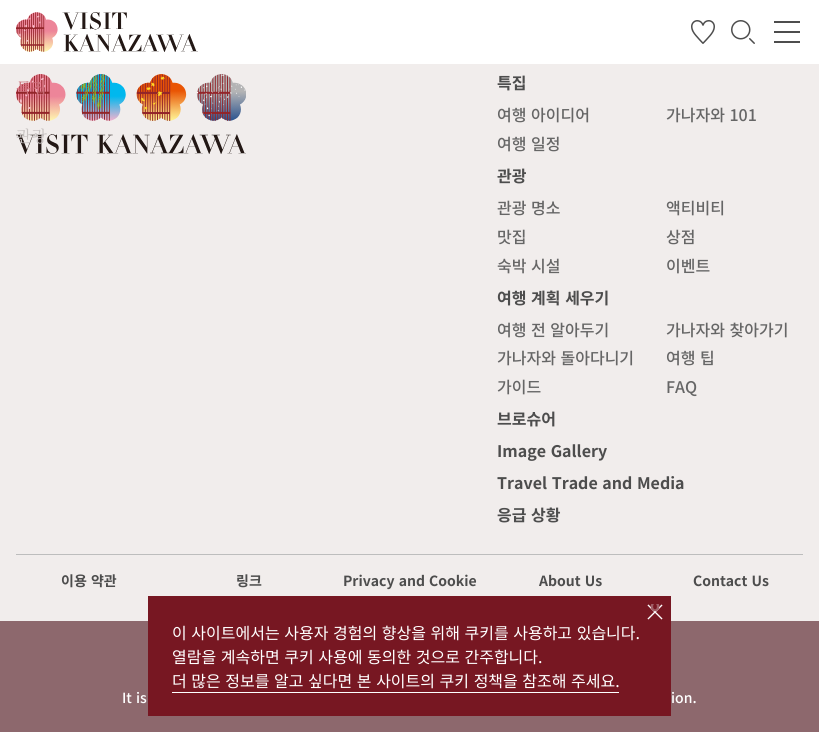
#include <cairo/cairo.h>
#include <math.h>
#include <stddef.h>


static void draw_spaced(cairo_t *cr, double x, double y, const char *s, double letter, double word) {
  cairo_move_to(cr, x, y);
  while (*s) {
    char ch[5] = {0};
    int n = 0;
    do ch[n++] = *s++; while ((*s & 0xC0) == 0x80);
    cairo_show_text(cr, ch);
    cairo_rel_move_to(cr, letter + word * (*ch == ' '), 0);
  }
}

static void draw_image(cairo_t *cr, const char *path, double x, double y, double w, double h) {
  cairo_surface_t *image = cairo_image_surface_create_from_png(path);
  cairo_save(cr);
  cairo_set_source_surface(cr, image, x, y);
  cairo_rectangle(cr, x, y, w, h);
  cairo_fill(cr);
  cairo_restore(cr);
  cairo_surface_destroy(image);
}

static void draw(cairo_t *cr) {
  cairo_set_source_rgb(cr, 241 / 255.0, 237 / 255.0, 236 / 255.0);
  cairo_paint(cr);
  cairo_set_source_rgb(cr, 1, 1, 1);
  cairo_rectangle(cr, 0, 0, 819, 64);
  cairo_fill(cr);
  draw_image(cr, "images/1.png", 16, 12, 182, 40);
  draw_image(cr, "images/2.png", 691, 20, 24, 24);
  draw_image(cr, "images/3.png", 731, 20, 24, 24);
  cairo_set_source_rgb(cr, 77 / 255.0, 77 / 255.0, 77 / 255.0);
  cairo_rectangle(cr, 774, 21, 26, 2);
  cairo_fill(cr);
  cairo_rectangle(cr, 774, 31, 26, 2);
  cairo_fill(cr);
  cairo_rectangle(cr, 774, 41, 26, 2);
  cairo_fill(cr);
  draw_image(cr, "images/4.png", 16, 74, 230, 80);
  cairo_set_source_rgb(cr, 189 / 255.0, 189 / 255.0, 189 / 255.0);
  cairo_rectangle(cr, 16, 554, 787, 1);
  cairo_fill(cr);
  cairo_set_source_rgb(cr, 141 / 255.0, 104 / 255.0, 109 / 255.0);
  cairo_rectangle(cr, 0, 621, 819, 111);
  cairo_fill(cr);
  cairo_set_source_rgb(cr, 119 / 255.0, 23 / 255.0, 34 / 255.0);
  cairo_rectangle(cr, 148, 596, 523, 120);
  cairo_fill(cr);
  draw_image(cr, "images/5.png", 647, 604, 16, 16);
  cairo_set_source_rgb(cr, 1, 1, 1);
  cairo_rectangle(cr, 172, 692, 447, 1);
  cairo_fill(cr);
  cairo_select_font_face(cr, "Noto Serif KR", CAIRO_FONT_SLANT_NORMAL, CAIRO_FONT_WEIGHT_NORMAL);
  cairo_set_font_size(cr, 16);
  cairo_set_source_rgb(cr, 202 / 255.0, 112 / 255.0, 122 / 255.0);
  cairo_move_to(cr, 16, 94);
  cairo_show_text(cr, "특집");
  cairo_set_source_rgb(cr, 199 / 255.0, 194 / 255.0, 193 / 255.0);
  cairo_move_to(cr, 16, 142);
  cairo_show_text(cr, "관광");
  cairo_select_font_face(cr, "Noto Sans KR", CAIRO_FONT_SLANT_NORMAL, CAIRO_FONT_WEIGHT_BOLD);
  cairo_set_source_rgb(cr, 77 / 255.0, 77 / 255.0, 77 / 255.0);
  cairo_move_to(cr, 497, 89);
  cairo_show_text(cr, "특집");
  cairo_select_font_face(cr, "Noto Sans KR Medium", CAIRO_FONT_SLANT_NORMAL, CAIRO_FONT_WEIGHT_NORMAL);
  cairo_set_source_rgb(cr, 102 / 255.0, 102 / 255.0, 102 / 255.0);
  draw_spaced(cr, 497, 121, "여행 아이디어", 0, 1);
  draw_spaced(cr, 666, 121, "가나자와 101", 0, 1);
  draw_spaced(cr, 497, 150, "여행 일정", 0, 1);
  cairo_select_font_face(cr, "Noto Sans KR", CAIRO_FONT_SLANT_NORMAL, CAIRO_FONT_WEIGHT_BOLD);
  cairo_set_source_rgb(cr, 77 / 255.0, 77 / 255.0, 77 / 255.0);
  cairo_move_to(cr, 497, 182);
  cairo_show_text(cr, "관광");
  cairo_select_font_face(cr, "Noto Sans KR Medium", CAIRO_FONT_SLANT_NORMAL, CAIRO_FONT_WEIGHT_NORMAL);
  cairo_set_source_rgb(cr, 102 / 255.0, 102 / 255.0, 102 / 255.0);
  draw_spaced(cr, 497, 214, "관광 명소", 0, 1);
  cairo_move_to(cr, 666, 214);
  cairo_show_text(cr, "액티비티");
  cairo_move_to(cr, 497, 243);
  cairo_show_text(cr, "맛집");
  cairo_move_to(cr, 666, 243);
  cairo_show_text(cr, "상점");
  draw_spaced(cr, 497, 272, "숙박 시설", 0, 1);
  cairo_move_to(cr, 666, 272);
  cairo_show_text(cr, "이벤트");
  cairo_select_font_face(cr, "Noto Sans KR", CAIRO_FONT_SLANT_NORMAL, CAIRO_FONT_WEIGHT_BOLD);
  cairo_set_source_rgb(cr, 77 / 255.0, 77 / 255.0, 77 / 255.0);
  draw_spaced(cr, 497, 304, "여행 계획 세우기", 0, 1);
  cairo_select_font_face(cr, "Noto Sans KR Medium", CAIRO_FONT_SLANT_NORMAL, CAIRO_FONT_WEIGHT_NORMAL);
  cairo_set_source_rgb(cr, 102 / 255.0, 102 / 255.0, 102 / 255.0);
  draw_spaced(cr, 497, 336, "여행 전 알아두기", 0, 1);
  draw_spaced(cr, 666, 336, "가나자와 찾아가기", 0, 1);
  draw_spaced(cr, 497, 364, "가나자와 돌아다니기", 0, 1);
  draw_spaced(cr, 666, 364, "여행 팁", 0, 1);
  cairo_move_to(cr, 497, 393);
  cairo_show_text(cr, "가이드");
  cairo_move_to(cr, 666, 393);
  cairo_show_text(cr, "FAQ");
  cairo_select_font_face(cr, "Noto Sans KR", CAIRO_FONT_SLANT_NORMAL, CAIRO_FONT_WEIGHT_BOLD);
  cairo_set_source_rgb(cr, 77 / 255.0, 77 / 255.0, 77 / 255.0);
  cairo_move_to(cr, 497, 425);
  cairo_show_text(cr, "브로슈어");
  draw_spaced(cr, 497, 457, "Image Gallery", 0, 1);
  draw_spaced(cr, 497, 489, "Travel Trade and Media", 0, 1);
  draw_spaced(cr, 497, 521, "응급 상황", 0, 1);
  cairo_set_font_size(cr, 14);
  draw_spaced(cr, 61, 586, "이용 약관", 0, 1);
  cairo_move_to(cr, 236, 586);
  cairo_show_text(cr, "링크");
  draw_spaced(cr, 343, 586, "Privacy and Cookie", 0, 1);
  draw_spaced(cr, 539, 586, "About Us", 0, 1);
  draw_spaced(cr, 693, 586, "Contact Us", 0, 1);
  cairo_select_font_face(cr, "Noto Sans KR Medium", CAIRO_FONT_SLANT_NORMAL, CAIRO_FONT_WEIGHT_NORMAL);
  cairo_set_source_rgb(cr, 1, 1, 1);
  draw_spaced(cr, 122, 703, "It is", 0, 1);
  draw_spaced(cr, 671, 703, "ion.", 0, 1);
  cairo_save(cr);
  cairo_rectangle(cr, 647, 604, 16, 16);
  cairo_clip(cr);
  cairo_select_font_face(cr, "Noto Sans KR", CAIRO_FONT_SLANT_NORMAL, CAIRO_FONT_WEIGHT_BOLD);
  cairo_set_font_size(cr, 16);
  cairo_set_source_rgb(cr, 161 / 255.0, 95 / 255.0, 103 / 255.0);
  cairo_move_to(cr, 650, 611);
  cairo_show_text(cr, "o");
  cairo_restore(cr);
  cairo_select_font_face(cr, "Noto Sans KR", CAIRO_FONT_SLANT_NORMAL, CAIRO_FONT_WEIGHT_NORMAL);
  cairo_set_font_size(cr, 16);
  draw_spaced(cr, 172, 639, "이 사이트에서는 사용자 경험의 향상을 위해 쿠키를 사용하고 있습니다.", 0, 1);
  draw_spaced(cr, 172, 663, "열람을 계속하면 쿠키 사용에 동의한 것으로 간주합니다.", 0, 1);
  draw_spaced(cr, 172, 687, "더 많은 정보를 알고 싶다면 본 사이트의 쿠키 정책을 참조해 주세요.", 0, 1);
}

int main(void) {
  cairo_surface_t *surface = cairo_image_surface_create(CAIRO_FORMAT_RGB24, 819, 732);
  cairo_t *cr = cairo_create(surface);
  cairo_font_options_t *options = cairo_font_options_create();
  cairo_font_options_set_hint_metrics(options, CAIRO_HINT_METRICS_OFF);
  cairo_font_options_set_hint_style(options, CAIRO_HINT_STYLE_NONE);
  cairo_set_font_options(cr, options);
  cairo_set_miter_limit(cr, 4);
  draw(cr);
  cairo_surface_write_to_png(surface, "out.png");
  cairo_font_options_destroy(options);
  cairo_destroy(cr);
  cairo_surface_destroy(surface);
  return 0;
}
